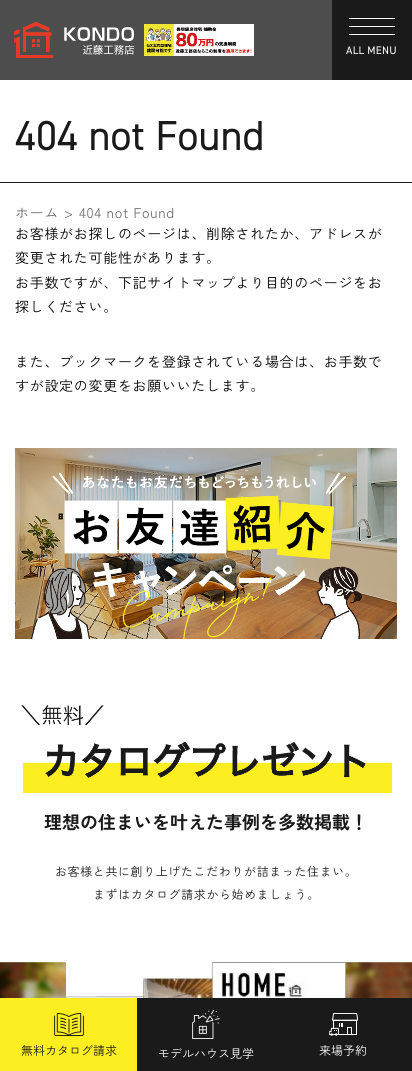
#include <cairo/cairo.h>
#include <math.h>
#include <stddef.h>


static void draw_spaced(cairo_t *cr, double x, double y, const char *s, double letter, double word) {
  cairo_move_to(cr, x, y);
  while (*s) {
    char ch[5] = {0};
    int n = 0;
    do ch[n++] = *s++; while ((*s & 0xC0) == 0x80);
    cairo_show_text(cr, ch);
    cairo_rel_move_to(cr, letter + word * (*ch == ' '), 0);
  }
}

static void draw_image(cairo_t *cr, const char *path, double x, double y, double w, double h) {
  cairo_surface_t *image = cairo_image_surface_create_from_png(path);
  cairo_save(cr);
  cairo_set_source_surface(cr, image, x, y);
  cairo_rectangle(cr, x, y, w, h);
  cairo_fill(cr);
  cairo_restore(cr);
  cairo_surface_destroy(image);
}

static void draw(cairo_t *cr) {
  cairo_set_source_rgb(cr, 1, 1, 1);
  cairo_paint(cr);
  cairo_set_source_rgb(cr, 77 / 255.0, 77 / 255.0, 77 / 255.0);
  cairo_rectangle(cr, 0, 0, 332, 80);
  cairo_fill(cr);
  draw_image(cr, "images/1.png", 14, 22, 120, 36);
  draw_image(cr, "images/2.png", 144, 24, 110, 32);
  cairo_set_source_rgb(cr, 26 / 255.0, 26 / 255.0, 26 / 255.0);
  cairo_rectangle(cr, 332, 0, 80, 80);
  cairo_fill(cr);
  cairo_set_source_rgb(cr, 1, 1, 1);
  cairo_rectangle(cr, 349, 18, 46, 1);
  cairo_fill(cr);
  cairo_rectangle(cr, 349, 26, 46, 1);
  cairo_fill(cr);
  cairo_rectangle(cr, 349, 34, 46, 1);
  cairo_fill(cr);
  cairo_set_source_rgb(cr, 26 / 255.0, 26 / 255.0, 26 / 255.0);
  cairo_rectangle(cr, 0, 182, 412, 1);
  cairo_fill(cr);
  draw_image(cr, "images/3.png", 15, 448, 382, 191);
  draw_image(cr, "images/4.png", 21, 705, 371, 88);
  draw_image(cr, "images/5.png", 0, 962, 412, 36);
  draw_image(cr, "images/6.png", 66, 962, 280, 36);
  cairo_set_source_rgb(cr, 252 / 255.0, 238 / 255.0, 33 / 255.0);
  cairo_rectangle(cr, 0, 998, 137, 73);
  cairo_fill(cr);
  draw_image(cr, "images/7.png", 54, 1013, 30, 23);
  cairo_set_source_rgb(cr, 26 / 255.0, 26 / 255.0, 26 / 255.0);
  cairo_rectangle(cr, 137, 998, 275, 73);
  cairo_fill(cr);
  draw_image(cr, "images/8.png", 192, 1010, 28, 29);
  draw_image(cr, "images/9.png", 329, 1013, 29, 23);
  cairo_select_font_face(cr, "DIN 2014", CAIRO_FONT_SLANT_NORMAL, CAIRO_FONT_WEIGHT_NORMAL);
  cairo_set_font_size(cr, 11);
  cairo_set_source_rgb(cr, 1, 1, 1);
  draw_spaced(cr, 346, 54, "ALL MENU", 0.25, 0);
  cairo_set_font_size(cr, 42);
  cairo_set_source_rgb(cr, 26 / 255.0, 26 / 255.0, 26 / 255.0);
  cairo_move_to(cr, 15, 150);
  cairo_show_text(cr, "404 not Found");
  cairo_select_font_face(cr, "Zen Kaku Gothic New", CAIRO_FONT_SLANT_NORMAL, CAIRO_FONT_WEIGHT_NORMAL);
  cairo_set_font_size(cr, 14);
  cairo_set_source_rgb(cr, 102 / 255.0, 102 / 255.0, 102 / 255.0);
  draw_spaced(cr, 15, 218, "ホーム", 0.7, 0);
  draw_spaced(cr, 64, 218, ">", 0.7, 0);
  draw_spaced(cr, 79, 218, "404 not Found", 0.7, 0);
  cairo_set_source_rgb(cr, 0, 0, 0);
  draw_spaced(cr, 15, 239, "お客様がお探しのページは、削除されたか、アドレスが", 0.7, 0);
  draw_spaced(cr, 15, 263, "変更された可能性があります。", 0.7, 0);
  draw_spaced(cr, 15, 288, "お手数ですが、下記サイトマップより目的のページをお", 0.7, 0);
  draw_spaced(cr, 15, 312, "探しください。", 0.7, 0);
  draw_spaced(cr, 15, 367, "また、ブックマークを登録されている場合は、お手数で", 0.7, 0);
  draw_spaced(cr, 15, 391, "すが設定の変更をお願いいたします。", 0.7, 0);
  cairo_select_font_face(cr, "Zen Kaku Gothic New", CAIRO_FONT_SLANT_NORMAL, CAIRO_FONT_WEIGHT_BOLD);
  cairo_set_font_size(cr, 18);
  cairo_set_source_rgb(cr, 26 / 255.0, 26 / 255.0, 26 / 255.0);
  cairo_move_to(cr, 44, 829);
  cairo_show_text(cr, "理想の住まいを叶えた事例を多数掲載！");
  cairo_select_font_face(cr, "Zen Kaku Gothic New", CAIRO_FONT_SLANT_NORMAL, CAIRO_FONT_WEIGHT_NORMAL);
  cairo_set_font_size(cr, 12);
  draw_spaced(cr, 55, 876, "お客様と共に創り上げたこだわりが詰まった住まい。", 0.6, 0);
  draw_spaced(cr, 93, 899, "まずはカタログ請求から始めましょう。", 0.6, 0);
  cairo_move_to(cr, 21, 1055);
  cairo_show_text(cr, "無料カタログ請求");
  cairo_set_source_rgb(cr, 1, 1, 1);
  cairo_move_to(cr, 158, 1058);
  cairo_show_text(cr, "モデルハウス見学");
  cairo_move_to(cr, 319, 1055);
  cairo_show_text(cr, "来場予約");
}

int main(void) {
  cairo_surface_t *surface = cairo_image_surface_create(CAIRO_FORMAT_RGB24, 412, 1071);
  cairo_t *cr = cairo_create(surface);
  cairo_font_options_t *options = cairo_font_options_create();
  cairo_font_options_set_hint_metrics(options, CAIRO_HINT_METRICS_OFF);
  cairo_font_options_set_hint_style(options, CAIRO_HINT_STYLE_NONE);
  cairo_set_font_options(cr, options);
  cairo_set_miter_limit(cr, 4);
  draw(cr);
  cairo_surface_write_to_png(surface, "out.png");
  cairo_font_options_destroy(options);
  cairo_destroy(cr);
  cairo_surface_destroy(surface);
  return 0;
}
